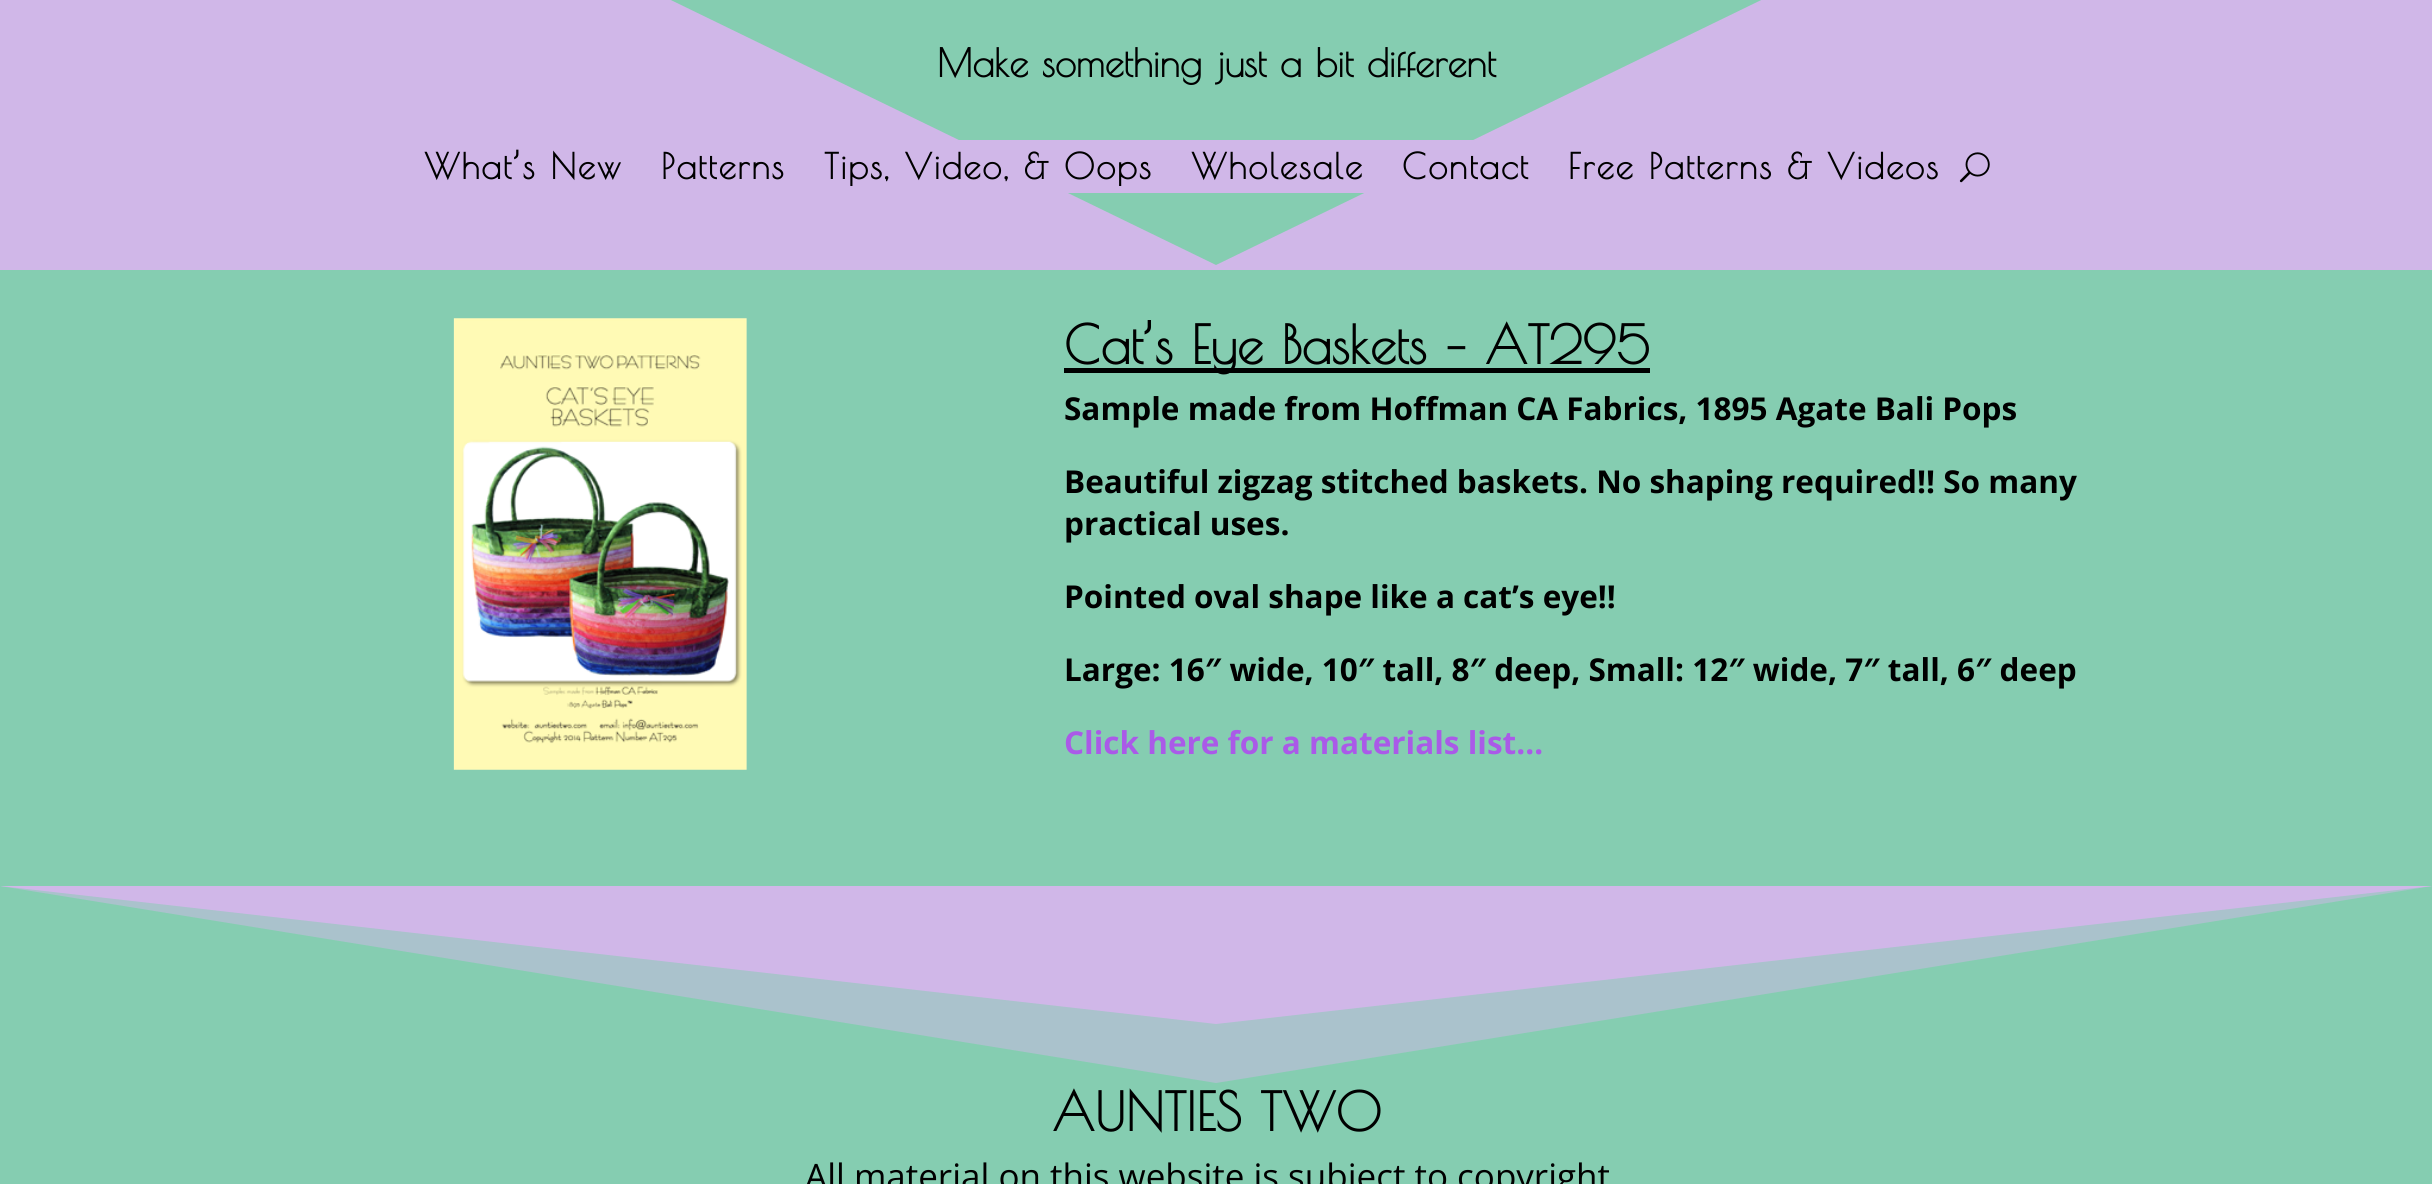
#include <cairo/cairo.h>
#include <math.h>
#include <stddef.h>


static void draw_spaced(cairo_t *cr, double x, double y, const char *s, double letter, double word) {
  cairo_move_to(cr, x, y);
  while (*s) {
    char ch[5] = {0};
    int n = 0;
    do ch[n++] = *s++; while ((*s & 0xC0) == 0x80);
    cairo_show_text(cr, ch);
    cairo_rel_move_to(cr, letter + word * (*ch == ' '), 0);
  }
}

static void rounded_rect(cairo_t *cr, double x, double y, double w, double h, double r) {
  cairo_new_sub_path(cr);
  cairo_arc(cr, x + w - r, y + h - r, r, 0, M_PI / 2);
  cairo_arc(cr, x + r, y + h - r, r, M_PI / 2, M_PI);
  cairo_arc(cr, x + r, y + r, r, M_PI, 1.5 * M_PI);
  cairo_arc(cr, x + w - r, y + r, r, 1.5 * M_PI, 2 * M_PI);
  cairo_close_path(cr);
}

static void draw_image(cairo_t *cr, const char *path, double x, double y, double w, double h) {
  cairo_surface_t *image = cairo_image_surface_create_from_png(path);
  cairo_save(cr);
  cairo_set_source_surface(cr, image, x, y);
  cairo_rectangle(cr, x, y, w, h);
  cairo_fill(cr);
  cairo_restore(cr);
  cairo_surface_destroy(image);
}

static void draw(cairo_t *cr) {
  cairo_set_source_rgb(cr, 133 / 255.0, 205 / 255.0, 177 / 255.0);
  cairo_paint(cr);
  cairo_set_source_rgb(cr, 208 / 255.0, 183 / 255.0, 232 / 255.0);
  cairo_new_path(cr);
  cairo_move_to(cr, 1216, 265);
  cairo_line_to(cr, 0, -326);
  cairo_line_to(cr, 0, 270);
  cairo_line_to(cr, 2432, 270);
  cairo_line_to(cr, 2432, -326);
  cairo_close_path(cr);
  cairo_fill(cr);
  rounded_rect(cr, 210, 140, 2013, 53, 18);
  cairo_fill(cr);
  draw_image(cr, "images/1.png", 1959, 152, 31, 31);
  draw_image(cr, "images/2.png", 453, 318, 294, 452);
  cairo_set_source_rgb(cr, 0, 0, 0);
  cairo_rectangle(cr, 1064, 368, 586, 5);
  cairo_fill(cr);
  cairo_set_source_rgb(cr, 170 / 255.0, 194 / 255.0, 204 / 255.0);
  cairo_new_path(cr);
  cairo_move_to(cr, 1216, 1083);
  cairo_line_to(cr, 2432, 886);
  cairo_line_to(cr, 0, 886);
  cairo_close_path(cr);
  cairo_fill(cr);
  cairo_set_source_rgb(cr, 208 / 255.0, 183 / 255.0, 232 / 255.0);
  cairo_new_path(cr);
  cairo_move_to(cr, 1216, 1024);
  cairo_line_to(cr, 2432, 886);
  cairo_line_to(cr, 0, 886);
  cairo_close_path(cr);
  cairo_fill(cr);
  cairo_select_font_face(cr, "Poiret One", CAIRO_FONT_SLANT_NORMAL, CAIRO_FONT_WEIGHT_BOLD);
  cairo_set_font_size(cr, 38.5);
  cairo_set_source_rgb(cr, 0, 0, 0);
  cairo_move_to(cr, 937, 77);
  cairo_show_text(cr, "Make something just a bit different");
  cairo_set_font_size(cr, 35);
  draw_spaced(cr, 424, 179, "What’s New", 1.75, 0);
  draw_spaced(cr, 661, 179, "Patterns", 1.75, 0);
  draw_spaced(cr, 824, 179, "Tips, Video, & Oops", 1.75, 0);
  draw_spaced(cr, 1191, 179, "Wholesale", 1.75, 0);
  draw_spaced(cr, 1402, 179, "Contact", 1.75, 0);
  draw_spaced(cr, 1568, 179, "Free Patterns & Videos", 1.75, 0);
  cairo_set_font_size(cr, 52.5);
  cairo_move_to(cr, 1064, 364);
  cairo_show_text(cr, "Cat’s Eye Baskets – AT295");
  cairo_select_font_face(cr, "Open Sans", CAIRO_FONT_SLANT_NORMAL, CAIRO_FONT_WEIGHT_BOLD);
  cairo_set_font_size(cr, 31.5);
  cairo_move_to(cr, 1064, 420);
  cairo_show_text(cr, "Sample made from Hoffman CA Fabrics, 1895 Agate Bali Pops");
  cairo_move_to(cr, 1064, 493);
  cairo_show_text(cr, "Beautiful zigzag stitched baskets. No shaping required!! So many");
  cairo_move_to(cr, 1064, 535);
  cairo_show_text(cr, "practical uses.");
  cairo_move_to(cr, 1064, 608);
  cairo_show_text(cr, "Pointed oval shape like a cat’s eye!!");
  cairo_move_to(cr, 1064, 681);
  cairo_show_text(cr, "Large: 16″ wide, 10″ tall, 8″ deep, Small: 12″ wide, 7″ tall, 6″ deep");
  cairo_set_source_rgb(cr, 170 / 255.0, 90 / 255.0, 232 / 255.0);
  cairo_move_to(cr, 1064, 754);
  cairo_show_text(cr, "Click here for a materials list…");
  cairo_select_font_face(cr, "Poiret One", CAIRO_FONT_SLANT_NORMAL, CAIRO_FONT_WEIGHT_BOLD);
  cairo_set_font_size(cr, 52.5);
  cairo_set_source_rgb(cr, 0, 0, 0);
  cairo_move_to(cr, 1052, 1131);
  cairo_show_text(cr, "AUNTIES TWO");
  cairo_select_font_face(cr, "Open Sans", CAIRO_FONT_SLANT_NORMAL, CAIRO_FONT_WEIGHT_NORMAL);
  cairo_set_font_size(cr, 35);
  cairo_move_to(cr, 805, 1189);
  cairo_show_text(cr, "All material on this website is subject to copyright");
}

int main(void) {
  cairo_surface_t *surface = cairo_image_surface_create(CAIRO_FORMAT_RGB24, 2432, 1184);
  cairo_t *cr = cairo_create(surface);
  cairo_font_options_t *options = cairo_font_options_create();
  cairo_font_options_set_hint_metrics(options, CAIRO_HINT_METRICS_OFF);
  cairo_font_options_set_hint_style(options, CAIRO_HINT_STYLE_NONE);
  cairo_set_font_options(cr, options);
  cairo_set_miter_limit(cr, 4);
  draw(cr);
  cairo_surface_write_to_png(surface, "out.png");
  cairo_font_options_destroy(options);
  cairo_destroy(cr);
  cairo_surface_destroy(surface);
  return 0;
}
